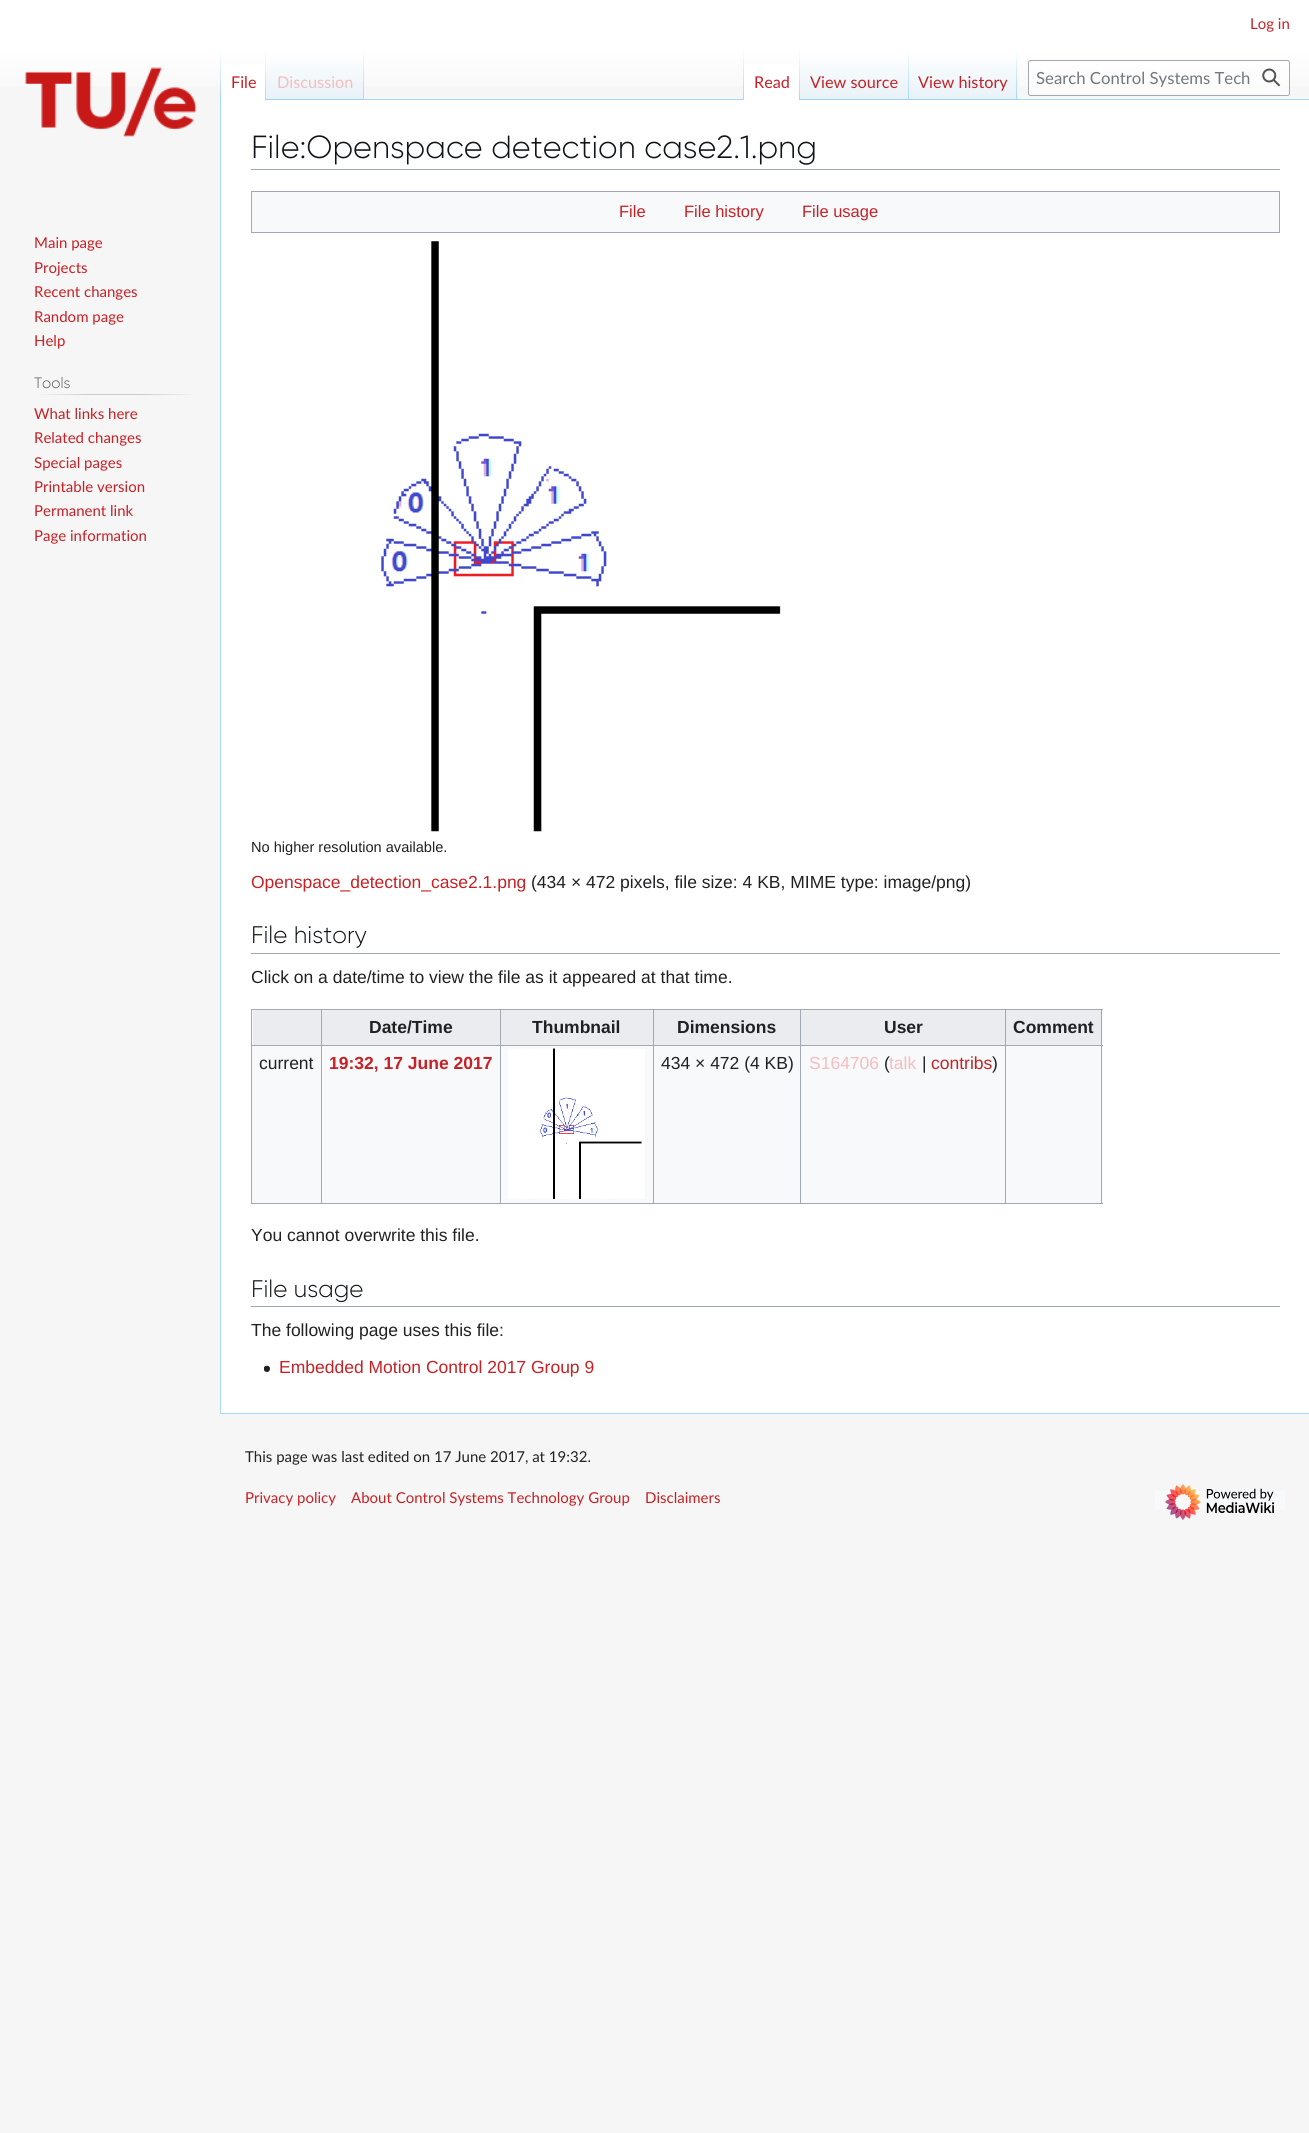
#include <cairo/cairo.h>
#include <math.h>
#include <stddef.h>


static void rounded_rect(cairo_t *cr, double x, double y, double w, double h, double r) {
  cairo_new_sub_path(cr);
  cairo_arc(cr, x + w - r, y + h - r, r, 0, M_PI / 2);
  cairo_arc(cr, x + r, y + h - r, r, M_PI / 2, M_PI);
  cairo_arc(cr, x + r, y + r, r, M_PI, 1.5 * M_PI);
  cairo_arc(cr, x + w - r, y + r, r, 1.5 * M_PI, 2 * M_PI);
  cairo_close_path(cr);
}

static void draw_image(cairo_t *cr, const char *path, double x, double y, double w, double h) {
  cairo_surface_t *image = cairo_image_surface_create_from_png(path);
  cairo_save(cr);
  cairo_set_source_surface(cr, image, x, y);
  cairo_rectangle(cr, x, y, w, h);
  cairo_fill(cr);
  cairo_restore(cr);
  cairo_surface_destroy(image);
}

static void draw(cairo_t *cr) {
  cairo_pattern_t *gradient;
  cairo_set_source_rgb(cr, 246 / 255.0, 246 / 255.0, 246 / 255.0);
  cairo_paint(cr);
  gradient = cairo_pattern_create_linear(655, 0, 655, 100);
  cairo_pattern_add_color_stop_rgba(gradient, 0.5, 1, 1, 1, 1);
  cairo_pattern_add_color_stop_rgba(gradient, 1, 246 / 255.0, 246 / 255.0, 246 / 255.0, 1);
  cairo_set_source(cr, gradient);
  cairo_pattern_destroy(gradient);
  cairo_rectangle(cr, 0, 0, 1309, 86);
  cairo_fill(cr);
  cairo_set_source_rgb(cr, 167 / 255.0, 215 / 255.0, 249 / 255.0);
  cairo_rectangle(cr, 220, 1413, 1089, 1);
  cairo_fill(cr);
  cairo_rectangle(cr, 220, 99, 1, 1315);
  cairo_fill(cr);
  gradient = cairo_pattern_create_linear(221, 50, 221, 100);
  cairo_pattern_add_color_stop_rgba(gradient, 0, 167 / 255.0, 215 / 255.0, 249 / 255.0, 0);
  cairo_pattern_add_color_stop_rgba(gradient, 1, 167 / 255.0, 215 / 255.0, 249 / 255.0, 1);
  cairo_set_source(cr, gradient);
  cairo_pattern_destroy(gradient);
  cairo_rectangle(cr, 220, 50, 1, 50);
  cairo_fill(cr);
  cairo_set_source_rgb(cr, 1, 1, 1);
  cairo_rectangle(cr, 221, 64, 44, 36);
  cairo_fill(cr);
  gradient = cairo_pattern_create_linear(266, 50, 266, 100);
  cairo_pattern_add_color_stop_rgba(gradient, 0, 1, 1, 1, 1);
  cairo_pattern_add_color_stop_rgba(gradient, 1, 167 / 255.0, 215 / 255.0, 249 / 255.0, 1);
  cairo_set_source(cr, gradient);
  cairo_pattern_destroy(gradient);
  cairo_rectangle(cr, 265, 50, 1, 50);
  cairo_fill(cr);
  gradient = cairo_pattern_create_linear(315, 100, 315, 50);
  cairo_pattern_add_color_stop_rgba(gradient, 0, 119 / 255.0, 193 / 255.0, 246 / 255.0, 1);
  cairo_pattern_add_color_stop_rgba(gradient, 0.03, 232 / 255.0, 242 / 255.0, 248 / 255.0, 1);
  cairo_pattern_add_color_stop_rgba(gradient, 1, 1, 1, 1, 1);
  cairo_set_source(cr, gradient);
  cairo_pattern_destroy(gradient);
  cairo_rectangle(cr, 266, 57, 98, 43);
  cairo_fill(cr);
  gradient = cairo_pattern_create_linear(363, 50, 363, 100);
  cairo_pattern_add_color_stop_rgba(gradient, 0, 167 / 255.0, 215 / 255.0, 249 / 255.0, 0);
  cairo_pattern_add_color_stop_rgba(gradient, 1, 167 / 255.0, 215 / 255.0, 249 / 255.0, 1);
  cairo_set_source(cr, gradient);
  cairo_pattern_destroy(gradient);
  cairo_rectangle(cr, 363, 50, 1, 50);
  cairo_fill(cr);
  cairo_set_source_rgb(cr, 167 / 255.0, 215 / 255.0, 249 / 255.0);
  cairo_rectangle(cr, 364, 99, 945, 1);
  cairo_fill(cr);
  gradient = cairo_pattern_create_linear(743, 50, 743, 100);
  cairo_pattern_add_color_stop_rgba(gradient, 0, 167 / 255.0, 215 / 255.0, 249 / 255.0, 0);
  cairo_pattern_add_color_stop_rgba(gradient, 1, 167 / 255.0, 215 / 255.0, 249 / 255.0, 1);
  cairo_set_source(cr, gradient);
  cairo_pattern_destroy(gradient);
  cairo_rectangle(cr, 743, 50, 1, 50);
  cairo_fill(cr);
  cairo_set_source_rgb(cr, 1, 1, 1);
  cairo_rectangle(cr, 744, 64, 55, 36);
  cairo_fill(cr);
  gradient = cairo_pattern_create_linear(799, 50, 799, 100);
  cairo_pattern_add_color_stop_rgba(gradient, 0, 1, 1, 1, 1);
  cairo_pattern_add_color_stop_rgba(gradient, 1, 167 / 255.0, 215 / 255.0, 249 / 255.0, 1);
  cairo_set_source(cr, gradient);
  cairo_pattern_destroy(gradient);
  cairo_rectangle(cr, 799, 50, 1, 50);
  cairo_fill(cr);
  gradient = cairo_pattern_create_linear(854, 100, 854, 50);
  cairo_pattern_add_color_stop_rgba(gradient, 0, 119 / 255.0, 193 / 255.0, 246 / 255.0, 1);
  cairo_pattern_add_color_stop_rgba(gradient, 0.03, 232 / 255.0, 242 / 255.0, 248 / 255.0, 1);
  cairo_pattern_add_color_stop_rgba(gradient, 1, 1, 1, 1, 1);
  cairo_set_source(cr, gradient);
  cairo_pattern_destroy(gradient);
  cairo_rectangle(cr, 800, 57, 109, 43);
  cairo_fill(cr);
  gradient = cairo_pattern_create_linear(908, 50, 908, 100);
  cairo_pattern_add_color_stop_rgba(gradient, 0, 167 / 255.0, 215 / 255.0, 249 / 255.0, 0);
  cairo_pattern_add_color_stop_rgba(gradient, 1, 167 / 255.0, 215 / 255.0, 249 / 255.0, 1);
  cairo_set_source(cr, gradient);
  cairo_pattern_destroy(gradient);
  cairo_rectangle(cr, 908, 50, 1, 50);
  cairo_fill(cr);
  gradient = cairo_pattern_create_linear(963, 100, 963, 50);
  cairo_pattern_add_color_stop_rgba(gradient, 0, 119 / 255.0, 193 / 255.0, 246 / 255.0, 1);
  cairo_pattern_add_color_stop_rgba(gradient, 0.03, 232 / 255.0, 242 / 255.0, 248 / 255.0, 1);
  cairo_pattern_add_color_stop_rgba(gradient, 1, 1, 1, 1, 1);
  cairo_set_source(cr, gradient);
  cairo_pattern_destroy(gradient);
  cairo_rectangle(cr, 909, 57, 109, 43);
  cairo_fill(cr);
  gradient = cairo_pattern_create_linear(1017, 50, 1017, 100);
  cairo_pattern_add_color_stop_rgba(gradient, 0, 167 / 255.0, 215 / 255.0, 249 / 255.0, 0);
  cairo_pattern_add_color_stop_rgba(gradient, 1, 167 / 255.0, 215 / 255.0, 249 / 255.0, 1);
  cairo_set_source(cr, gradient);
  cairo_pattern_destroy(gradient);
  cairo_rectangle(cr, 1016, 50, 1, 50);
  cairo_fill(cr);
  cairo_set_source_rgba(cr, 1, 1, 1, 0.5);
  rounded_rect(cr, 1028.5, 60.5, 261, 35, 2);
  cairo_fill_preserve(cr);
  cairo_set_source_rgb(cr, 162 / 255.0, 169 / 255.0, 177 / 255.0);
  cairo_set_line_width(cr, 1);
  cairo_stroke(cr);
  draw_image(cr, "images/1.png", 1262, 68, 19, 19);
  draw_image(cr, "images/2.png", 25, 67, 172, 70);
  gradient = cairo_pattern_create_linear(34, 394, 198, 394);
  cairo_pattern_add_color_stop_rgba(gradient, 0, 246 / 255.0, 246 / 255.0, 246 / 255.0, 1);
  cairo_pattern_add_color_stop_rgba(gradient, 0.33, 200 / 255.0, 204 / 255.0, 209 / 255.0, 1);
  cairo_pattern_add_color_stop_rgba(gradient, 0.66, 200 / 255.0, 204 / 255.0, 209 / 255.0, 1);
  cairo_pattern_add_color_stop_rgba(gradient, 1, 246 / 255.0, 246 / 255.0, 246 / 255.0, 1);
  cairo_set_source(cr, gradient);
  cairo_pattern_destroy(gradient);
  cairo_rectangle(cr, 34, 394, 164, 1);
  cairo_fill(cr);
  cairo_set_source_rgb(cr, 1, 1, 1);
  cairo_rectangle(cr, 221, 100, 1088, 1313);
  cairo_fill(cr);
  cairo_set_source_rgb(cr, 162 / 255.0, 169 / 255.0, 177 / 255.0);
  cairo_rectangle(cr, 251, 169, 1029, 1);
  cairo_fill(cr);
  cairo_set_source_rgb(cr, 248 / 255.0, 249 / 255.0, 250 / 255.0);
  cairo_rectangle(cr, 251.5, 191.5, 1028, 41);
  cairo_fill_preserve(cr);
  cairo_set_source_rgb(cr, 162 / 255.0, 169 / 255.0, 177 / 255.0);
  cairo_stroke(cr);
  draw_image(cr, "images/3.png", 381, 241, 400, 591);
  cairo_rectangle(cr, 251, 953, 1029, 1);
  cairo_fill(cr);
  cairo_set_source_rgb(cr, 248 / 255.0, 249 / 255.0, 250 / 255.0);
  cairo_rectangle(cr, 252, 1010, 851, 193);
  cairo_fill(cr);
  cairo_set_source_rgb(cr, 162 / 255.0, 169 / 255.0, 177 / 255.0);
  cairo_rectangle(cr, 251, 1009, 852, 1);
  cairo_fill(cr);
  cairo_rectangle(cr, 1101, 1009, 1, 195);
  cairo_fill(cr);
  cairo_rectangle(cr, 251, 1203, 852, 1);
  cairo_fill(cr);
  cairo_rectangle(cr, 251, 1009, 1, 195);
  cairo_fill(cr);
  cairo_set_source_rgb(cr, 234 / 255.0, 236 / 255.0, 240 / 255.0);
  cairo_rectangle(cr, 253, 1010, 68, 35);
  cairo_fill(cr);
  cairo_rectangle(cr, 322, 1010, 178, 35);
  cairo_fill(cr);
  cairo_set_source_rgb(cr, 162 / 255.0, 169 / 255.0, 177 / 255.0);
  cairo_rectangle(cr, 1005, 1045, 98, 1);
  cairo_fill(cr);
  cairo_rectangle(cr, 1005, 1045, 1, 159);
  cairo_fill(cr);
  cairo_rectangle(cr, 800, 1045, 206, 1);
  cairo_fill(cr);
  cairo_rectangle(cr, 800, 1045, 1, 159);
  cairo_fill(cr);
  cairo_rectangle(cr, 653, 1045, 148, 1);
  cairo_fill(cr);
  cairo_rectangle(cr, 653, 1045, 1, 159);
  cairo_fill(cr);
  cairo_rectangle(cr, 500, 1045, 154, 1);
  cairo_fill(cr);
  cairo_rectangle(cr, 500, 1045, 1, 159);
  cairo_fill(cr);
  cairo_rectangle(cr, 321, 1045, 180, 1);
  cairo_fill(cr);
  cairo_rectangle(cr, 321, 1045, 1, 159);
  cairo_fill(cr);
  cairo_rectangle(cr, 251, 1045, 72, 1);
  cairo_fill(cr);
  cairo_rectangle(cr, 321, 1009, 1, 37);
  cairo_fill(cr);
  cairo_set_source_rgb(cr, 234 / 255.0, 236 / 255.0, 240 / 255.0);
  cairo_rectangle(cr, 501, 1010, 152, 35);
  cairo_fill(cr);
  cairo_set_source_rgb(cr, 162 / 255.0, 169 / 255.0, 177 / 255.0);
  cairo_rectangle(cr, 500, 1009, 1, 37);
  cairo_fill(cr);
  cairo_set_source_rgb(cr, 234 / 255.0, 236 / 255.0, 240 / 255.0);
  cairo_rectangle(cr, 654, 1010, 146, 35);
  cairo_fill(cr);
  cairo_set_source_rgb(cr, 162 / 255.0, 169 / 255.0, 177 / 255.0);
  cairo_rectangle(cr, 653, 1009, 1, 37);
  cairo_fill(cr);
  cairo_set_source_rgb(cr, 234 / 255.0, 236 / 255.0, 240 / 255.0);
  cairo_rectangle(cr, 801, 1010, 204, 35);
  cairo_fill(cr);
  cairo_set_source_rgb(cr, 162 / 255.0, 169 / 255.0, 177 / 255.0);
  cairo_rectangle(cr, 800, 1009, 1, 37);
  cairo_fill(cr);
  cairo_set_source_rgb(cr, 234 / 255.0, 236 / 255.0, 240 / 255.0);
  cairo_rectangle(cr, 1006, 1010, 95, 35);
  cairo_fill(cr);
  cairo_set_source_rgb(cr, 162 / 255.0, 169 / 255.0, 177 / 255.0);
  cairo_rectangle(cr, 1005, 1009, 1, 37);
  cairo_fill(cr);
  draw_image(cr, "images/4.png", 508, 1048, 137, 151);
  draw_image(cr, "images/5.png", 553, 1048, 28, 151);
  cairo_rectangle(cr, 251, 1306, 1029, 1);
  cairo_fill(cr);
  draw_image(cr, "images/6.png", 264, 1365, 6, 7);
  cairo_set_source_rgb(cr, 248 / 255.0, 249 / 255.0, 250 / 255.0);
  cairo_rectangle(cr, 1155, 1491, 130, 19);
  cairo_fill(cr);
  draw_image(cr, "images/7.png", 1165, 1484, 110, 36);
  cairo_select_font_face(cr, "Lato", CAIRO_FONT_SLANT_NORMAL, CAIRO_FONT_WEIGHT_NORMAL);
  cairo_set_font_size(cr, 15);
  cairo_set_source_rgb(cr, 199 / 255.0, 33 / 255.0, 37 / 255.0);
  cairo_move_to(cr, 1250, 29);
  cairo_show_text(cr, "Log in");
  cairo_set_font_size(cr, 16.25);
  cairo_move_to(cr, 231, 88);
  cairo_show_text(cr, "File");
  cairo_set_source_rgb(cr, 245 / 255.0, 189 / 255.0, 191 / 255.0);
  cairo_move_to(cr, 277, 88);
  cairo_show_text(cr, "Discussion");
  cairo_set_source_rgb(cr, 199 / 255.0, 33 / 255.0, 37 / 255.0);
  cairo_move_to(cr, 754, 88);
  cairo_show_text(cr, "Read");
  cairo_move_to(cr, 810, 88);
  cairo_show_text(cr, "View source");
  cairo_move_to(cr, 918, 88);
  cairo_show_text(cr, "View history");
  cairo_set_font_size(cr, 16.7);
  cairo_set_source_rgb(cr, 114 / 255.0, 119 / 255.0, 125 / 255.0);
  cairo_move_to(cr, 1036, 84);
  cairo_show_text(cr, "Search Control Systems Tech");
  cairo_set_font_size(cr, 15);
  cairo_set_source_rgb(cr, 199 / 255.0, 33 / 255.0, 37 / 255.0);
  cairo_move_to(cr, 34, 248);
  cairo_show_text(cr, "Main page");
  cairo_move_to(cr, 34, 273);
  cairo_show_text(cr, "Projects");
  cairo_move_to(cr, 34, 297);
  cairo_show_text(cr, "Recent changes");
  cairo_move_to(cr, 34, 322);
  cairo_show_text(cr, "Random page");
  cairo_move_to(cr, 34, 346);
  cairo_show_text(cr, "Help");
  cairo_select_font_face(cr, "Gilroy Light", CAIRO_FONT_SLANT_NORMAL, CAIRO_FONT_WEIGHT_NORMAL);
  cairo_set_source_rgb(cr, 84 / 255.0, 89 / 255.0, 93 / 255.0);
  cairo_move_to(cr, 34, 388);
  cairo_show_text(cr, "Tools");
  cairo_select_font_face(cr, "Lato", CAIRO_FONT_SLANT_NORMAL, CAIRO_FONT_WEIGHT_NORMAL);
  cairo_set_source_rgb(cr, 199 / 255.0, 33 / 255.0, 37 / 255.0);
  cairo_move_to(cr, 34, 419);
  cairo_show_text(cr, "What links here");
  cairo_move_to(cr, 34, 443);
  cairo_show_text(cr, "Related changes");
  cairo_move_to(cr, 34, 468);
  cairo_show_text(cr, "Special pages");
  cairo_move_to(cr, 34, 492);
  cairo_show_text(cr, "Printable version");
  cairo_move_to(cr, 34, 516);
  cairo_show_text(cr, "Permanent link");
  cairo_move_to(cr, 34, 541);
  cairo_show_text(cr, "Page information");
  cairo_select_font_face(cr, "Gilroy Light", CAIRO_FONT_SLANT_NORMAL, CAIRO_FONT_WEIGHT_NORMAL);
  cairo_set_font_size(cr, 32);
  cairo_set_source_rgb(cr, 16 / 255.0, 20 / 255.0, 24 / 255.0);
  cairo_move_to(cr, 251, 158);
  cairo_show_text(cr, "File:Openspace detection case2.1.png");
  cairo_select_font_face(cr, "Liberation Sans", CAIRO_FONT_SLANT_NORMAL, CAIRO_FONT_WEIGHT_NORMAL);
  cairo_set_font_size(cr, 16.5);
  cairo_set_source_rgb(cr, 199 / 255.0, 33 / 255.0, 37 / 255.0);
  cairo_move_to(cr, 619, 217);
  cairo_show_text(cr, "File");
  cairo_move_to(cr, 684, 217);
  cairo_show_text(cr, "File history");
  cairo_move_to(cr, 802, 217);
  cairo_show_text(cr, "File usage");
  cairo_set_font_size(cr, 14.6);
  cairo_set_source_rgb(cr, 32 / 255.0, 33 / 255.0, 34 / 255.0);
  cairo_move_to(cr, 251, 852);
  cairo_show_text(cr, "No higher resolution available.");
  cairo_set_font_size(cr, 17.5);
  cairo_set_source_rgb(cr, 199 / 255.0, 33 / 255.0, 37 / 255.0);
  cairo_move_to(cr, 251, 888);
  cairo_show_text(cr, "Openspace_detection_case2.1.png");
  cairo_set_source_rgb(cr, 32 / 255.0, 33 / 255.0, 34 / 255.0);
  cairo_move_to(cr, 531, 888);
  cairo_show_text(cr, "(434 × 472 pixels, file size: 4 KB, MIME type: image/png)");
  cairo_select_font_face(cr, "Gilroy Light", CAIRO_FONT_SLANT_NORMAL, CAIRO_FONT_WEIGHT_NORMAL);
  cairo_set_font_size(cr, 24);
  cairo_set_source_rgb(cr, 16 / 255.0, 20 / 255.0, 24 / 255.0);
  cairo_move_to(cr, 251, 943);
  cairo_show_text(cr, "File history");
  cairo_select_font_face(cr, "Liberation Sans", CAIRO_FONT_SLANT_NORMAL, CAIRO_FONT_WEIGHT_NORMAL);
  cairo_set_font_size(cr, 17.5);
  cairo_set_source_rgb(cr, 32 / 255.0, 33 / 255.0, 34 / 255.0);
  cairo_move_to(cr, 251, 983);
  cairo_show_text(cr, "Click on a date/time to view the file as it appeared at that time.");
  cairo_select_font_face(cr, "Liberation Sans", CAIRO_FONT_SLANT_NORMAL, CAIRO_FONT_WEIGHT_BOLD);
  cairo_move_to(cr, 369, 1033);
  cairo_show_text(cr, "Date/Time");
  cairo_move_to(cr, 532, 1033);
  cairo_show_text(cr, "Thumbnail");
  cairo_move_to(cr, 677, 1033);
  cairo_show_text(cr, "Dimensions");
  cairo_move_to(cr, 884, 1033);
  cairo_show_text(cr, "User");
  cairo_move_to(cr, 1013, 1033);
  cairo_show_text(cr, "Comment");
  cairo_select_font_face(cr, "Liberation Sans", CAIRO_FONT_SLANT_NORMAL, CAIRO_FONT_WEIGHT_NORMAL);
  cairo_move_to(cr, 259, 1069);
  cairo_show_text(cr, "current");
  cairo_select_font_face(cr, "Liberation Sans", CAIRO_FONT_SLANT_NORMAL, CAIRO_FONT_WEIGHT_BOLD);
  cairo_set_source_rgb(cr, 199 / 255.0, 33 / 255.0, 37 / 255.0);
  cairo_move_to(cr, 329, 1069);
  cairo_show_text(cr, "19:32, 17 June 2017");
  cairo_select_font_face(cr, "Liberation Sans", CAIRO_FONT_SLANT_NORMAL, CAIRO_FONT_WEIGHT_NORMAL);
  cairo_set_source_rgb(cr, 32 / 255.0, 33 / 255.0, 34 / 255.0);
  cairo_move_to(cr, 661, 1069);
  cairo_show_text(cr, "434 × 472 (4 KB)");
  cairo_set_source_rgb(cr, 245 / 255.0, 189 / 255.0, 191 / 255.0);
  cairo_move_to(cr, 809, 1069);
  cairo_show_text(cr, "S164706");
  cairo_set_source_rgb(cr, 32 / 255.0, 33 / 255.0, 34 / 255.0);
  cairo_move_to(cr, 884, 1069);
  cairo_show_text(cr, "(");
  cairo_set_source_rgb(cr, 245 / 255.0, 189 / 255.0, 191 / 255.0);
  cairo_move_to(cr, 889, 1069);
  cairo_show_text(cr, "talk");
  cairo_set_source_rgb(cr, 32 / 255.0, 33 / 255.0, 34 / 255.0);
  cairo_move_to(cr, 922, 1069);
  cairo_show_text(cr, "|");
  cairo_set_source_rgb(cr, 199 / 255.0, 33 / 255.0, 37 / 255.0);
  cairo_move_to(cr, 931, 1069);
  cairo_show_text(cr, "contribs");
  cairo_set_source_rgb(cr, 32 / 255.0, 33 / 255.0, 34 / 255.0);
  cairo_move_to(cr, 992, 1069);
  cairo_show_text(cr, ")");
  cairo_move_to(cr, 251, 1241);
  cairo_show_text(cr, "You cannot overwrite this file.");
  cairo_select_font_face(cr, "Gilroy Light", CAIRO_FONT_SLANT_NORMAL, CAIRO_FONT_WEIGHT_NORMAL);
  cairo_set_font_size(cr, 24);
  cairo_set_source_rgb(cr, 16 / 255.0, 20 / 255.0, 24 / 255.0);
  cairo_move_to(cr, 251, 1297);
  cairo_show_text(cr, "File usage");
  cairo_select_font_face(cr, "Liberation Sans", CAIRO_FONT_SLANT_NORMAL, CAIRO_FONT_WEIGHT_NORMAL);
  cairo_set_font_size(cr, 17.5);
  cairo_set_source_rgb(cr, 32 / 255.0, 33 / 255.0, 34 / 255.0);
  cairo_move_to(cr, 251, 1336);
  cairo_show_text(cr, "The following page uses this file:");
  cairo_set_source_rgb(cr, 199 / 255.0, 33 / 255.0, 37 / 255.0);
  cairo_move_to(cr, 279, 1373);
  cairo_show_text(cr, "Embedded Motion Control 2017 Group 9");
  cairo_select_font_face(cr, "Lato", CAIRO_FONT_SLANT_NORMAL, CAIRO_FONT_WEIGHT_NORMAL);
  cairo_set_font_size(cr, 15);
  cairo_set_source_rgb(cr, 32 / 255.0, 33 / 255.0, 34 / 255.0);
  cairo_move_to(cr, 245, 1462);
  cairo_show_text(cr, "This page was last edited on 17 June 2017, at 19:32.");
  cairo_set_source_rgb(cr, 199 / 255.0, 33 / 255.0, 37 / 255.0);
  cairo_move_to(cr, 245, 1503);
  cairo_show_text(cr, "Privacy policy");
  cairo_move_to(cr, 351, 1503);
  cairo_show_text(cr, "About Control Systems Technology Group");
  cairo_move_to(cr, 645, 1503);
  cairo_show_text(cr, "Disclaimers");
}

int main(void) {
  cairo_surface_t *surface = cairo_image_surface_create(CAIRO_FORMAT_RGB24, 1309, 2133);
  cairo_t *cr = cairo_create(surface);
  cairo_font_options_t *options = cairo_font_options_create();
  cairo_font_options_set_hint_metrics(options, CAIRO_HINT_METRICS_OFF);
  cairo_font_options_set_hint_style(options, CAIRO_HINT_STYLE_NONE);
  cairo_set_font_options(cr, options);
  cairo_set_miter_limit(cr, 4);
  draw(cr);
  cairo_surface_write_to_png(surface, "out.png");
  cairo_font_options_destroy(options);
  cairo_destroy(cr);
  cairo_surface_destroy(surface);
  return 0;
}
